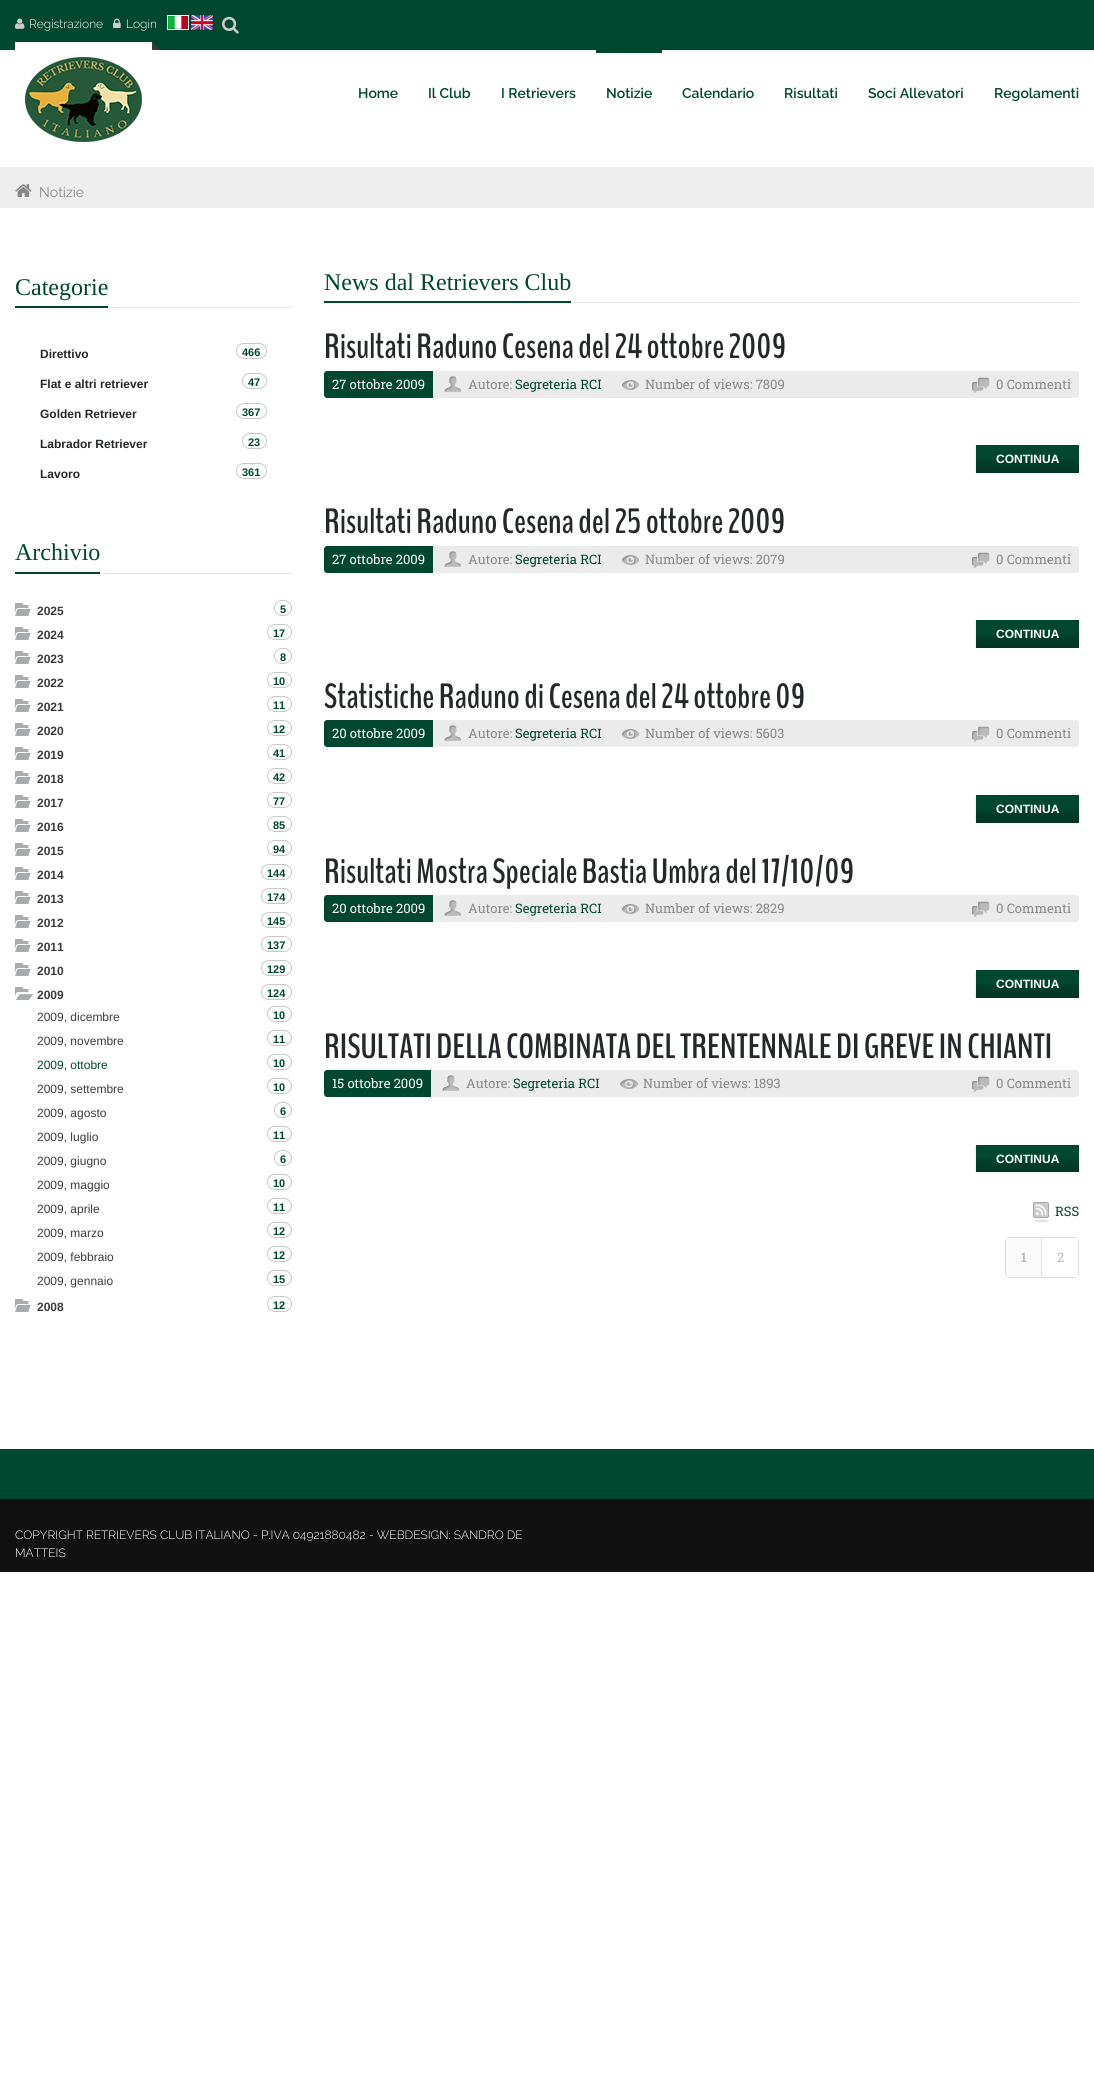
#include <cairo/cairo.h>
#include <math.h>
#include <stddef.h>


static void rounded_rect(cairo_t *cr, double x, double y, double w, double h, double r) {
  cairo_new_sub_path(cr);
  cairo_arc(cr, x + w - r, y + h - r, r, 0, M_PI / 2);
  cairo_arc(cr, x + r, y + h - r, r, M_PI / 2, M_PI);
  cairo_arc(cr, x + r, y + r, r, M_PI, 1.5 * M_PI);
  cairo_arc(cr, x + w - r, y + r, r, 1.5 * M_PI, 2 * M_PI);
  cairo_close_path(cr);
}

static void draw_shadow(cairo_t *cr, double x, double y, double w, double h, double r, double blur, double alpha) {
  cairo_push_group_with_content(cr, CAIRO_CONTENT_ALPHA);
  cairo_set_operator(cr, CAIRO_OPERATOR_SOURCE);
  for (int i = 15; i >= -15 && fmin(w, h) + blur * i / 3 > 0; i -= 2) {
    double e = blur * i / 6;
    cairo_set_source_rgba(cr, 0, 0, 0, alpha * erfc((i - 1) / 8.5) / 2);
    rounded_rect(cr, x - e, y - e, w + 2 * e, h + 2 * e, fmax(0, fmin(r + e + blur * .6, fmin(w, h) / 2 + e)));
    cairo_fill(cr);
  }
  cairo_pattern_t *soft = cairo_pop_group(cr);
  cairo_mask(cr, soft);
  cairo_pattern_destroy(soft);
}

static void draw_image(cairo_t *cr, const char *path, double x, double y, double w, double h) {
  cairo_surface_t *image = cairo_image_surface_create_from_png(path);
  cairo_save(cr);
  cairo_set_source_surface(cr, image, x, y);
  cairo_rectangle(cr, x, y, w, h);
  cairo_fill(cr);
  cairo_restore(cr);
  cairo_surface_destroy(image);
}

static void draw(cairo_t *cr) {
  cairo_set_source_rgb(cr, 1, 1, 1);
  cairo_paint(cr);
  cairo_set_source_rgb(cr, 0, 71 / 255.0, 47 / 255.0);
  cairo_rectangle(cr, 0, 0, 1094, 50);
  cairo_fill(cr);
  draw_image(cr, "images/1.png", 15, 18, 10, 11);
  draw_image(cr, "images/2.png", 113, 18, 8, 10);
  cairo_rectangle(cr, 167.5, 15.5, 21, 14);
  cairo_set_source_rgb(cr, 1, 1, 1);
  cairo_set_line_width(cr, 1);
  cairo_stroke(cr);
  draw_image(cr, "images/3.png", 191, 15, 22, 15);
  draw_image(cr, "images/4.png", 168, 16, 20, 13);
  cairo_set_source_rgb(cr, 15 / 255.0, 65 / 255.0, 48 / 255.0);
  cairo_rectangle(cr, 217, 15, 1, 20);
  cairo_fill(cr);
  draw_image(cr, "images/5.png", 222, 16, 17, 18);
  cairo_set_source_rgb(cr, 1, 1, 1);
  cairo_new_path(cr);
  cairo_move_to(cr, 15, 42);
  cairo_line_to(cr, 152, 42);
  cairo_line_to(cr, 152, 153);
  cairo_curve_to(cr, 152, 155, 150, 157, 148, 157);
  cairo_line_to(cr, 19, 157);
  cairo_curve_to(cr, 17, 157, 15, 155, 15, 153);
  cairo_close_path(cr);
  cairo_fill(cr);
  cairo_set_source_rgb(cr, 58 / 255.0, 58 / 255.0, 58 / 255.0);
  cairo_new_path(cr);
  cairo_move_to(cr, 160, 50);
  cairo_line_to(cr, 152, 50);
  cairo_line_to(cr, 152, 42);
  cairo_close_path(cr);
  cairo_fill(cr);
  draw_image(cr, "images/6.png", 25, 57, 117, 85);
  cairo_set_source_rgb(cr, 0, 71 / 255.0, 47 / 255.0);
  cairo_rectangle(cr, 596, 50, 66, 3);
  cairo_fill(cr);
  cairo_set_source_rgb(cr, 238 / 255.0, 238 / 255.0, 238 / 255.0);
  cairo_rectangle(cr, 0, 167, 1094, 41);
  cairo_fill(cr);
  draw_image(cr, "images/7.png", 15, 184, 17, 13);
  cairo_set_source_rgb(cr, 229 / 255.0, 231 / 255.0, 230 / 255.0);
  cairo_rectangle(cr, 108, 307, 184, 1);
  cairo_fill(cr);
  cairo_set_source_rgb(cr, 0, 71 / 255.0, 47 / 255.0);
  cairo_rectangle(cr, 15, 306, 93, 2);
  cairo_fill(cr);
  rounded_rect(cr, 236.5, 343.5, 30, 15, 7.5);
  cairo_set_source_rgb(cr, 198 / 255.0, 201 / 255.0, 203 / 255.0);
  cairo_stroke(cr);
  rounded_rect(cr, 242.5, 373.5, 24, 15, 7.5);
  cairo_stroke(cr);
  rounded_rect(cr, 236.5, 403.5, 30, 15, 7.5);
  cairo_stroke(cr);
  rounded_rect(cr, 242.5, 433.5, 24, 15, 7.5);
  cairo_stroke(cr);
  rounded_rect(cr, 236.5, 463.5, 30, 15, 7.5);
  cairo_stroke(cr);
  cairo_set_source_rgb(cr, 229 / 255.0, 231 / 255.0, 230 / 255.0);
  cairo_rectangle(cr, 100, 573, 192, 1);
  cairo_fill(cr);
  cairo_set_source_rgb(cr, 0, 71 / 255.0, 47 / 255.0);
  cairo_rectangle(cr, 15, 572, 85, 2);
  cairo_fill(cr);
  draw_image(cr, "images/8.png", 15, 603, 16, 13);
  rounded_rect(cr, 274.5, 600.5, 17, 15, 7.5);
  cairo_set_source_rgb(cr, 198 / 255.0, 201 / 255.0, 203 / 255.0);
  cairo_stroke(cr);
  draw_image(cr, "images/8.png", 15, 627, 16, 13);
  rounded_rect(cr, 267.5, 624.5, 24, 15, 7.5);
  cairo_stroke(cr);
  draw_image(cr, "images/8.png", 15, 651, 16, 13);
  rounded_rect(cr, 274.5, 648.5, 17, 15, 7.5);
  cairo_stroke(cr);
  draw_image(cr, "images/8.png", 15, 675, 16, 13);
  rounded_rect(cr, 267.5, 672.5, 24, 15, 7.5);
  cairo_stroke(cr);
  draw_image(cr, "images/8.png", 15, 699, 16, 13);
  rounded_rect(cr, 267.5, 696.5, 24, 15, 7.5);
  cairo_stroke(cr);
  draw_image(cr, "images/8.png", 15, 723, 16, 13);
  rounded_rect(cr, 267.5, 720.5, 24, 15, 7.5);
  cairo_stroke(cr);
  draw_image(cr, "images/8.png", 15, 747, 16, 13);
  rounded_rect(cr, 267.5, 744.5, 24, 15, 7.5);
  cairo_stroke(cr);
  draw_image(cr, "images/8.png", 15, 771, 16, 13);
  rounded_rect(cr, 267.5, 768.5, 24, 15, 7.5);
  cairo_stroke(cr);
  draw_image(cr, "images/8.png", 15, 795, 16, 13);
  rounded_rect(cr, 267.5, 792.5, 24, 15, 7.5);
  cairo_stroke(cr);
  draw_image(cr, "images/8.png", 15, 819, 16, 13);
  rounded_rect(cr, 267.5, 816.5, 24, 15, 7.5);
  cairo_stroke(cr);
  draw_image(cr, "images/8.png", 15, 843, 16, 13);
  rounded_rect(cr, 267.5, 840.5, 24, 15, 7.5);
  cairo_stroke(cr);
  draw_image(cr, "images/8.png", 15, 867, 16, 13);
  rounded_rect(cr, 261.5, 864.5, 30, 15, 7.5);
  cairo_stroke(cr);
  draw_image(cr, "images/8.png", 15, 891, 16, 13);
  rounded_rect(cr, 261.5, 888.5, 30, 15, 7.5);
  cairo_stroke(cr);
  draw_image(cr, "images/8.png", 15, 915, 16, 13);
  rounded_rect(cr, 261.5, 912.5, 30, 15, 7.5);
  cairo_stroke(cr);
  draw_image(cr, "images/8.png", 15, 939, 16, 13);
  rounded_rect(cr, 261.5, 936.5, 30, 15, 7.5);
  cairo_stroke(cr);
  draw_image(cr, "images/8.png", 15, 963, 16, 13);
  rounded_rect(cr, 261.5, 960.5, 30, 15, 7.5);
  cairo_stroke(cr);
  draw_image(cr, "images/9.png", 15, 987, 19, 13);
  rounded_rect(cr, 261.5, 984.5, 30, 15, 7.5);
  cairo_stroke(cr);
  rounded_rect(cr, 267.5, 1006.5, 24, 15, 7.5);
  cairo_stroke(cr);
  rounded_rect(cr, 267.5, 1030.5, 24, 15, 7.5);
  cairo_stroke(cr);
  rounded_rect(cr, 267.5, 1054.5, 24, 15, 7.5);
  cairo_stroke(cr);
  rounded_rect(cr, 267.5, 1078.5, 24, 15, 7.5);
  cairo_stroke(cr);
  rounded_rect(cr, 274.5, 1102.5, 17, 15, 7.5);
  cairo_stroke(cr);
  rounded_rect(cr, 267.5, 1126.5, 24, 15, 7.5);
  cairo_stroke(cr);
  rounded_rect(cr, 274.5, 1150.5, 17, 15, 7.5);
  cairo_stroke(cr);
  rounded_rect(cr, 267.5, 1174.5, 24, 15, 7.5);
  cairo_stroke(cr);
  rounded_rect(cr, 267.5, 1198.5, 24, 15, 7.5);
  cairo_stroke(cr);
  rounded_rect(cr, 267.5, 1222.5, 24, 15, 7.5);
  cairo_stroke(cr);
  rounded_rect(cr, 267.5, 1246.5, 24, 15, 7.5);
  cairo_stroke(cr);
  rounded_rect(cr, 267.5, 1270.5, 24, 15, 7.5);
  cairo_stroke(cr);
  draw_image(cr, "images/8.png", 15, 1299, 16, 13);
  rounded_rect(cr, 267.5, 1296.5, 24, 15, 7.5);
  cairo_stroke(cr);
  cairo_set_source_rgb(cr, 229 / 255.0, 231 / 255.0, 230 / 255.0);
  cairo_rectangle(cr, 571, 302, 508, 1);
  cairo_fill(cr);
  cairo_set_source_rgb(cr, 0, 71 / 255.0, 47 / 255.0);
  cairo_rectangle(cr, 324, 301, 247, 2);
  cairo_fill(cr);
  cairo_set_source_rgb(cr, 235 / 255.0, 235 / 255.0, 235 / 255.0);
  rounded_rect(cr, 324, 371, 755, 27, 3);
  cairo_fill(cr);
  cairo_set_source_rgb(cr, 0, 71 / 255.0, 47 / 255.0);
  cairo_new_path(cr);
  cairo_move_to(cr, 327, 371);
  cairo_line_to(cr, 433, 371);
  cairo_line_to(cr, 433, 398);
  cairo_line_to(cr, 327, 398);
  cairo_curve_to(cr, 325.5, 398, 324, 396.5, 324, 395);
  cairo_line_to(cr, 324, 374);
  cairo_curve_to(cr, 324, 372.5, 325.5, 371, 327, 371);
  cairo_close_path(cr);
  cairo_fill(cr);
  draw_image(cr, "images/10.png", 444, 376, 17, 16);
  draw_image(cr, "images/11.png", 621, 380, 18, 10);
  draw_image(cr, "images/12.png", 972, 377, 18, 16);
  cairo_save(cr);
  cairo_rectangle(cr, 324, 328, 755, 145);
  cairo_clip(cr);
  cairo_set_source_rgb(cr, 0, 0, 0);
  draw_shadow(cr, 976, 447, 103, 28, 0, 1, 0.2);
  cairo_restore(cr);
  cairo_rectangle(cr, 976, 445, 103, 28);
  cairo_fill(cr);
  draw_image(cr, "images/13.png", 976, 459, 103, 14);
  cairo_set_source_rgb(cr, 235 / 255.0, 235 / 255.0, 235 / 255.0);
  rounded_rect(cr, 324, 546, 755, 27, 3);
  cairo_fill(cr);
  cairo_set_source_rgb(cr, 0, 71 / 255.0, 47 / 255.0);
  cairo_new_path(cr);
  cairo_move_to(cr, 327, 546);
  cairo_line_to(cr, 433, 546);
  cairo_line_to(cr, 433, 573);
  cairo_line_to(cr, 327, 573);
  cairo_curve_to(cr, 325.5, 573, 324, 571.5, 324, 570);
  cairo_line_to(cr, 324, 549);
  cairo_curve_to(cr, 324, 547.5, 325.5, 546, 327, 546);
  cairo_close_path(cr);
  cairo_fill(cr);
  draw_image(cr, "images/10.png", 444, 551, 17, 16);
  draw_image(cr, "images/11.png", 621, 555, 18, 10);
  draw_image(cr, "images/12.png", 972, 552, 18, 16);
  cairo_save(cr);
  cairo_rectangle(cr, 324, 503, 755, 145);
  cairo_clip(cr);
  cairo_set_source_rgb(cr, 0, 0, 0);
  draw_shadow(cr, 976, 622, 103, 28, 0, 1, 0.2);
  cairo_restore(cr);
  cairo_rectangle(cr, 976, 620, 103, 28);
  cairo_fill(cr);
  draw_image(cr, "images/13.png", 976, 634, 103, 14);
  cairo_set_source_rgb(cr, 235 / 255.0, 235 / 255.0, 235 / 255.0);
  rounded_rect(cr, 324, 720, 755, 27, 3);
  cairo_fill(cr);
  cairo_set_source_rgb(cr, 0, 71 / 255.0, 47 / 255.0);
  cairo_new_path(cr);
  cairo_move_to(cr, 327, 720);
  cairo_line_to(cr, 433, 720);
  cairo_line_to(cr, 433, 747);
  cairo_line_to(cr, 327, 747);
  cairo_curve_to(cr, 325.5, 747, 324, 745.5, 324, 744);
  cairo_line_to(cr, 324, 723);
  cairo_curve_to(cr, 324, 721.5, 325.5, 720, 327, 720);
  cairo_close_path(cr);
  cairo_fill(cr);
  draw_image(cr, "images/10.png", 444, 725, 17, 16);
  draw_image(cr, "images/11.png", 621, 729, 18, 10);
  draw_image(cr, "images/12.png", 972, 726, 18, 16);
  cairo_save(cr);
  cairo_rectangle(cr, 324, 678, 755, 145);
  cairo_clip(cr);
  cairo_set_source_rgb(cr, 0, 0, 0);
  draw_shadow(cr, 976, 797, 103, 28, 0, 1, 0.2);
  cairo_restore(cr);
  cairo_rectangle(cr, 976, 795, 103, 28);
  cairo_fill(cr);
  draw_image(cr, "images/13.png", 976, 809, 103, 14);
  cairo_set_source_rgb(cr, 235 / 255.0, 235 / 255.0, 235 / 255.0);
  rounded_rect(cr, 324, 895, 755, 27, 3);
  cairo_fill(cr);
  cairo_set_source_rgb(cr, 0, 71 / 255.0, 47 / 255.0);
  cairo_new_path(cr);
  cairo_move_to(cr, 327, 895);
  cairo_line_to(cr, 433, 895);
  cairo_line_to(cr, 433, 922);
  cairo_line_to(cr, 327, 922);
  cairo_curve_to(cr, 325.5, 922, 324, 920.5, 324, 919);
  cairo_line_to(cr, 324, 898);
  cairo_curve_to(cr, 324, 896.5, 325.5, 895, 327, 895);
  cairo_close_path(cr);
  cairo_fill(cr);
  draw_image(cr, "images/10.png", 444, 900, 17, 16);
  draw_image(cr, "images/11.png", 621, 904, 18, 10);
  draw_image(cr, "images/12.png", 972, 901, 18, 16);
  cairo_save(cr);
  cairo_rectangle(cr, 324, 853, 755, 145);
  cairo_clip(cr);
  cairo_set_source_rgb(cr, 0, 0, 0);
  draw_shadow(cr, 976, 972, 103, 28, 0, 1, 0.2);
  cairo_restore(cr);
  cairo_rectangle(cr, 976, 970, 103, 28);
  cairo_fill(cr);
  draw_image(cr, "images/13.png", 976, 984, 103, 14);
  cairo_set_source_rgb(cr, 235 / 255.0, 235 / 255.0, 235 / 255.0);
  rounded_rect(cr, 324, 1070, 755, 27, 3);
  cairo_fill(cr);
  cairo_set_source_rgb(cr, 0, 71 / 255.0, 47 / 255.0);
  cairo_new_path(cr);
  cairo_move_to(cr, 327, 1070);
  cairo_line_to(cr, 431, 1070);
  cairo_line_to(cr, 431, 1097);
  cairo_line_to(cr, 327, 1097);
  cairo_curve_to(cr, 325.5, 1097, 324, 1095.5, 324, 1094);
  cairo_line_to(cr, 324, 1073);
  cairo_curve_to(cr, 324, 1071.5, 325.5, 1070, 327, 1070);
  cairo_close_path(cr);
  cairo_fill(cr);
  draw_image(cr, "images/10.png", 442, 1075, 17, 16);
  draw_image(cr, "images/14.png", 619, 1079, 19, 10);
  draw_image(cr, "images/12.png", 972, 1076, 18, 16);
  cairo_save(cr);
  cairo_rectangle(cr, 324, 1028, 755, 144);
  cairo_clip(cr);
  cairo_set_source_rgb(cr, 0, 0, 0);
  draw_shadow(cr, 976, 1147, 103, 27, 0, 1, 0.2);
  cairo_restore(cr);
  cairo_rectangle(cr, 976, 1145, 103, 27);
  cairo_fill(cr);
  draw_image(cr, "images/15.png", 976, 1159, 103, 13);
  draw_image(cr, "images/16.png", 1033, 1202, 17, 20);
  cairo_set_source_rgb(cr, 224 / 255.0, 224 / 255.0, 224 / 255.0);
  cairo_set_fill_rule(cr, CAIRO_FILL_RULE_EVEN_ODD);
  cairo_new_path(cr);
  cairo_move_to(cr, 1009, 1237);
  cairo_line_to(cr, 1075, 1237);
  cairo_curve_to(cr, 1077, 1237, 1079, 1239, 1079, 1241);
  cairo_line_to(cr, 1079, 1274);
  cairo_curve_to(cr, 1079, 1276, 1077, 1278, 1075, 1278);
  cairo_line_to(cr, 1009, 1278);
  cairo_curve_to(cr, 1007, 1278, 1005, 1276, 1005, 1274);
  cairo_line_to(cr, 1005, 1241);
  cairo_curve_to(cr, 1005, 1239, 1007, 1237, 1009, 1237);
  cairo_close_path(cr);
  cairo_move_to(cr, 1009, 1238);
  cairo_line_to(cr, 1075, 1238);
  cairo_curve_to(cr, 1077, 1238, 1079, 1239, 1079, 1241);
  cairo_line_to(cr, 1079, 1274);
  cairo_curve_to(cr, 1079, 1276, 1077, 1277, 1075, 1277);
  cairo_line_to(cr, 1009, 1277);
  cairo_curve_to(cr, 1007, 1277, 1006, 1276, 1006, 1274);
  cairo_line_to(cr, 1006, 1241);
  cairo_curve_to(cr, 1006, 1239, 1007, 1238, 1009, 1238);
  cairo_close_path(cr);
  cairo_fill(cr);
  cairo_set_source_rgb(cr, 251 / 255.0, 251 / 255.0, 251 / 255.0);
  cairo_set_fill_rule(cr, CAIRO_FILL_RULE_WINDING);
  cairo_new_path(cr);
  cairo_move_to(cr, 1009, 1238);
  cairo_curve_to(cr, 1007.5, 1238, 1006, 1239.5, 1006, 1241);
  cairo_line_to(cr, 1006, 1274);
  cairo_curve_to(cr, 1006, 1275.5, 1007.5, 1277, 1009, 1277);
  cairo_line_to(cr, 1042, 1277);
  cairo_line_to(cr, 1042, 1238);
  cairo_close_path(cr);
  cairo_fill(cr);
  cairo_set_source_rgb(cr, 224 / 255.0, 224 / 255.0, 224 / 255.0);
  cairo_rectangle(cr, 1041, 1238, 1, 39);
  cairo_fill(cr);
  cairo_set_source_rgb(cr, 1, 1, 1);
  cairo_new_path(cr);
  cairo_move_to(cr, 1042, 1238);
  cairo_line_to(cr, 1042, 1277);
  cairo_line_to(cr, 1075, 1277);
  cairo_curve_to(cr, 1077, 1277, 1079, 1275.5, 1079, 1274);
  cairo_line_to(cr, 1079, 1241);
  cairo_curve_to(cr, 1079, 1239.5, 1077, 1238, 1075, 1238);
  cairo_close_path(cr);
  cairo_fill(cr);
  cairo_set_source_rgb(cr, 224 / 255.0, 224 / 255.0, 224 / 255.0);
  cairo_new_path(cr);
  cairo_move_to(cr, 1079, 1274);
  cairo_line_to(cr, 1079, 1240.5);
  cairo_line_to(cr, 1078, 1239);
  cairo_line_to(cr, 1078, 1276);
  cairo_curve_to(cr, 1078.5, 1275.5, 1079, 1275, 1079, 1274);
  cairo_close_path(cr);
  cairo_fill(cr);
  cairo_set_source_rgb(cr, 0, 71 / 255.0, 47 / 255.0);
  cairo_rectangle(cr, 0, 1449, 1094, 50);
  cairo_fill(cr);
  cairo_set_source_rgb(cr, 17 / 255.0, 17 / 255.0, 17 / 255.0);
  cairo_rectangle(cr, 0, 1499, 1094, 73);
  cairo_fill(cr);
  cairo_select_font_face(cr, "Raleway Light", CAIRO_FONT_SLANT_NORMAL, CAIRO_FONT_WEIGHT_NORMAL);
  cairo_set_font_size(cr, 12);
  cairo_set_source_rgb(cr, 1, 1, 1);
  cairo_move_to(cr, 29, 28);
  cairo_show_text(cr, "Registrazione");
  cairo_move_to(cr, 126, 28);
  cairo_show_text(cr, "Login");
  cairo_select_font_face(cr, "Raleway SemiBold", CAIRO_FONT_SLANT_NORMAL, CAIRO_FONT_WEIGHT_NORMAL);
  cairo_set_font_size(cr, 14);
  cairo_set_source_rgb(cr, 0, 71 / 255.0, 47 / 255.0);
  cairo_move_to(cr, 358, 98);
  cairo_show_text(cr, "Home");
  cairo_move_to(cr, 428, 98);
  cairo_show_text(cr, "Il Club");
  cairo_move_to(cr, 501, 98);
  cairo_show_text(cr, "I Retrievers");
  cairo_move_to(cr, 606, 98);
  cairo_show_text(cr, "Notizie");
  cairo_move_to(cr, 682, 98);
  cairo_show_text(cr, "Calendario");
  cairo_move_to(cr, 784, 98);
  cairo_show_text(cr, "Risultati");
  cairo_move_to(cr, 868, 98);
  cairo_show_text(cr, "Soci Allevatori");
  cairo_move_to(cr, 994, 98);
  cairo_show_text(cr, "Regolamenti");
  cairo_select_font_face(cr, "Raleway", CAIRO_FONT_SLANT_NORMAL, CAIRO_FONT_WEIGHT_NORMAL);
  cairo_set_source_rgb(cr, 136 / 255.0, 136 / 255.0, 136 / 255.0);
  cairo_move_to(cr, 39, 197);
  cairo_show_text(cr, "Notizie");
  cairo_select_font_face(cr, "Liberation Serif", CAIRO_FONT_SLANT_NORMAL, CAIRO_FONT_WEIGHT_NORMAL);
  cairo_set_font_size(cr, 24);
  cairo_set_source_rgb(cr, 0, 71 / 255.0, 47 / 255.0);
  cairo_move_to(cr, 15, 295);
  cairo_show_text(cr, "Categorie");
  cairo_select_font_face(cr, "Liberation Sans", CAIRO_FONT_SLANT_NORMAL, CAIRO_FONT_WEIGHT_BOLD);
  cairo_set_font_size(cr, 12);
  cairo_set_source_rgb(cr, 37 / 255.0, 40 / 255.0, 42 / 255.0);
  cairo_move_to(cr, 40, 358);
  cairo_show_text(cr, "Direttivo");
  cairo_set_font_size(cr, 11);
  cairo_set_source_rgb(cr, 0, 71 / 255.0, 47 / 255.0);
  cairo_move_to(cr, 242, 356);
  cairo_show_text(cr, "466");
  cairo_set_font_size(cr, 12);
  cairo_set_source_rgb(cr, 37 / 255.0, 40 / 255.0, 42 / 255.0);
  cairo_move_to(cr, 40, 388);
  cairo_show_text(cr, "Flat e altri retriever");
  cairo_set_font_size(cr, 11);
  cairo_set_source_rgb(cr, 0, 71 / 255.0, 47 / 255.0);
  cairo_move_to(cr, 248, 386);
  cairo_show_text(cr, "47");
  cairo_set_font_size(cr, 12);
  cairo_set_source_rgb(cr, 37 / 255.0, 40 / 255.0, 42 / 255.0);
  cairo_move_to(cr, 40, 418);
  cairo_show_text(cr, "Golden Retriever");
  cairo_set_font_size(cr, 11);
  cairo_set_source_rgb(cr, 0, 71 / 255.0, 47 / 255.0);
  cairo_move_to(cr, 242, 416);
  cairo_show_text(cr, "367");
  cairo_set_font_size(cr, 12);
  cairo_set_source_rgb(cr, 37 / 255.0, 40 / 255.0, 42 / 255.0);
  cairo_move_to(cr, 40, 448);
  cairo_show_text(cr, "Labrador Retriever");
  cairo_set_font_size(cr, 11);
  cairo_set_source_rgb(cr, 0, 71 / 255.0, 47 / 255.0);
  cairo_move_to(cr, 248, 446);
  cairo_show_text(cr, "23");
  cairo_set_font_size(cr, 12);
  cairo_set_source_rgb(cr, 37 / 255.0, 40 / 255.0, 42 / 255.0);
  cairo_move_to(cr, 40, 478);
  cairo_show_text(cr, "Lavoro");
  cairo_set_font_size(cr, 11);
  cairo_set_source_rgb(cr, 0, 71 / 255.0, 47 / 255.0);
  cairo_move_to(cr, 242, 476);
  cairo_show_text(cr, "361");
  cairo_select_font_face(cr, "Liberation Serif", CAIRO_FONT_SLANT_NORMAL, CAIRO_FONT_WEIGHT_NORMAL);
  cairo_set_font_size(cr, 24);
  cairo_move_to(cr, 15, 560);
  cairo_show_text(cr, "Archivio");
  cairo_select_font_face(cr, "Liberation Sans", CAIRO_FONT_SLANT_NORMAL, CAIRO_FONT_WEIGHT_BOLD);
  cairo_set_font_size(cr, 12);
  cairo_set_source_rgb(cr, 60 / 255.0, 60 / 255.0, 60 / 255.0);
  cairo_move_to(cr, 37, 615);
  cairo_show_text(cr, "2025");
  cairo_set_font_size(cr, 11);
  cairo_set_source_rgb(cr, 0, 71 / 255.0, 47 / 255.0);
  cairo_move_to(cr, 280, 613);
  cairo_show_text(cr, "5");
  cairo_set_font_size(cr, 12);
  cairo_set_source_rgb(cr, 60 / 255.0, 60 / 255.0, 60 / 255.0);
  cairo_move_to(cr, 37, 639);
  cairo_show_text(cr, "2024");
  cairo_set_font_size(cr, 11);
  cairo_set_source_rgb(cr, 0, 71 / 255.0, 47 / 255.0);
  cairo_move_to(cr, 273, 637);
  cairo_show_text(cr, "17");
  cairo_set_font_size(cr, 12);
  cairo_set_source_rgb(cr, 60 / 255.0, 60 / 255.0, 60 / 255.0);
  cairo_move_to(cr, 37, 663);
  cairo_show_text(cr, "2023");
  cairo_set_font_size(cr, 11);
  cairo_set_source_rgb(cr, 0, 71 / 255.0, 47 / 255.0);
  cairo_move_to(cr, 280, 661);
  cairo_show_text(cr, "8");
  cairo_set_font_size(cr, 12);
  cairo_set_source_rgb(cr, 60 / 255.0, 60 / 255.0, 60 / 255.0);
  cairo_move_to(cr, 37, 687);
  cairo_show_text(cr, "2022");
  cairo_set_font_size(cr, 11);
  cairo_set_source_rgb(cr, 0, 71 / 255.0, 47 / 255.0);
  cairo_move_to(cr, 273, 685);
  cairo_show_text(cr, "10");
  cairo_set_font_size(cr, 12);
  cairo_set_source_rgb(cr, 60 / 255.0, 60 / 255.0, 60 / 255.0);
  cairo_move_to(cr, 37, 711);
  cairo_show_text(cr, "2021");
  cairo_set_font_size(cr, 11);
  cairo_set_source_rgb(cr, 0, 71 / 255.0, 47 / 255.0);
  cairo_move_to(cr, 273, 709);
  cairo_show_text(cr, "11");
  cairo_set_font_size(cr, 12);
  cairo_set_source_rgb(cr, 60 / 255.0, 60 / 255.0, 60 / 255.0);
  cairo_move_to(cr, 37, 735);
  cairo_show_text(cr, "2020");
  cairo_set_font_size(cr, 11);
  cairo_set_source_rgb(cr, 0, 71 / 255.0, 47 / 255.0);
  cairo_move_to(cr, 273, 733);
  cairo_show_text(cr, "12");
  cairo_set_font_size(cr, 12);
  cairo_set_source_rgb(cr, 60 / 255.0, 60 / 255.0, 60 / 255.0);
  cairo_move_to(cr, 37, 759);
  cairo_show_text(cr, "2019");
  cairo_set_font_size(cr, 11);
  cairo_set_source_rgb(cr, 0, 71 / 255.0, 47 / 255.0);
  cairo_move_to(cr, 273, 757);
  cairo_show_text(cr, "41");
  cairo_set_font_size(cr, 12);
  cairo_set_source_rgb(cr, 60 / 255.0, 60 / 255.0, 60 / 255.0);
  cairo_move_to(cr, 37, 783);
  cairo_show_text(cr, "2018");
  cairo_set_font_size(cr, 11);
  cairo_set_source_rgb(cr, 0, 71 / 255.0, 47 / 255.0);
  cairo_move_to(cr, 273, 781);
  cairo_show_text(cr, "42");
  cairo_set_font_size(cr, 12);
  cairo_set_source_rgb(cr, 60 / 255.0, 60 / 255.0, 60 / 255.0);
  cairo_move_to(cr, 37, 807);
  cairo_show_text(cr, "2017");
  cairo_set_font_size(cr, 11);
  cairo_set_source_rgb(cr, 0, 71 / 255.0, 47 / 255.0);
  cairo_move_to(cr, 273, 805);
  cairo_show_text(cr, "77");
  cairo_set_font_size(cr, 12);
  cairo_set_source_rgb(cr, 60 / 255.0, 60 / 255.0, 60 / 255.0);
  cairo_move_to(cr, 37, 831);
  cairo_show_text(cr, "2016");
  cairo_set_font_size(cr, 11);
  cairo_set_source_rgb(cr, 0, 71 / 255.0, 47 / 255.0);
  cairo_move_to(cr, 273, 829);
  cairo_show_text(cr, "85");
  cairo_set_font_size(cr, 12);
  cairo_set_source_rgb(cr, 60 / 255.0, 60 / 255.0, 60 / 255.0);
  cairo_move_to(cr, 37, 855);
  cairo_show_text(cr, "2015");
  cairo_set_font_size(cr, 11);
  cairo_set_source_rgb(cr, 0, 71 / 255.0, 47 / 255.0);
  cairo_move_to(cr, 273, 853);
  cairo_show_text(cr, "94");
  cairo_set_font_size(cr, 12);
  cairo_set_source_rgb(cr, 60 / 255.0, 60 / 255.0, 60 / 255.0);
  cairo_move_to(cr, 37, 879);
  cairo_show_text(cr, "2014");
  cairo_set_font_size(cr, 11);
  cairo_set_source_rgb(cr, 0, 71 / 255.0, 47 / 255.0);
  cairo_move_to(cr, 267, 877);
  cairo_show_text(cr, "144");
  cairo_set_font_size(cr, 12);
  cairo_set_source_rgb(cr, 60 / 255.0, 60 / 255.0, 60 / 255.0);
  cairo_move_to(cr, 37, 903);
  cairo_show_text(cr, "2013");
  cairo_set_font_size(cr, 11);
  cairo_set_source_rgb(cr, 0, 71 / 255.0, 47 / 255.0);
  cairo_move_to(cr, 267, 901);
  cairo_show_text(cr, "174");
  cairo_set_font_size(cr, 12);
  cairo_set_source_rgb(cr, 60 / 255.0, 60 / 255.0, 60 / 255.0);
  cairo_move_to(cr, 37, 927);
  cairo_show_text(cr, "2012");
  cairo_set_font_size(cr, 11);
  cairo_set_source_rgb(cr, 0, 71 / 255.0, 47 / 255.0);
  cairo_move_to(cr, 267, 925);
  cairo_show_text(cr, "145");
  cairo_set_font_size(cr, 12);
  cairo_set_source_rgb(cr, 60 / 255.0, 60 / 255.0, 60 / 255.0);
  cairo_move_to(cr, 37, 951);
  cairo_show_text(cr, "2011");
  cairo_set_font_size(cr, 11);
  cairo_set_source_rgb(cr, 0, 71 / 255.0, 47 / 255.0);
  cairo_move_to(cr, 267, 949);
  cairo_show_text(cr, "137");
  cairo_set_font_size(cr, 12);
  cairo_set_source_rgb(cr, 60 / 255.0, 60 / 255.0, 60 / 255.0);
  cairo_move_to(cr, 37, 975);
  cairo_show_text(cr, "2010");
  cairo_set_font_size(cr, 11);
  cairo_set_source_rgb(cr, 0, 71 / 255.0, 47 / 255.0);
  cairo_move_to(cr, 267, 973);
  cairo_show_text(cr, "129");
  cairo_set_font_size(cr, 12);
  cairo_set_source_rgb(cr, 60 / 255.0, 60 / 255.0, 60 / 255.0);
  cairo_move_to(cr, 37, 999);
  cairo_show_text(cr, "2009");
  cairo_set_font_size(cr, 11);
  cairo_set_source_rgb(cr, 0, 71 / 255.0, 47 / 255.0);
  cairo_move_to(cr, 267, 997);
  cairo_show_text(cr, "124");
  cairo_select_font_face(cr, "Liberation Sans", CAIRO_FONT_SLANT_NORMAL, CAIRO_FONT_WEIGHT_NORMAL);
  cairo_set_font_size(cr, 12);
  cairo_set_source_rgb(cr, 60 / 255.0, 60 / 255.0, 60 / 255.0);
  cairo_move_to(cr, 37, 1021);
  cairo_show_text(cr, "2009, dicembre");
  cairo_select_font_face(cr, "Liberation Sans", CAIRO_FONT_SLANT_NORMAL, CAIRO_FONT_WEIGHT_BOLD);
  cairo_set_font_size(cr, 11);
  cairo_set_source_rgb(cr, 0, 71 / 255.0, 47 / 255.0);
  cairo_move_to(cr, 273, 1019);
  cairo_show_text(cr, "10");
  cairo_select_font_face(cr, "Liberation Sans", CAIRO_FONT_SLANT_NORMAL, CAIRO_FONT_WEIGHT_NORMAL);
  cairo_set_font_size(cr, 12);
  cairo_set_source_rgb(cr, 60 / 255.0, 60 / 255.0, 60 / 255.0);
  cairo_move_to(cr, 37, 1045);
  cairo_show_text(cr, "2009, novembre");
  cairo_select_font_face(cr, "Liberation Sans", CAIRO_FONT_SLANT_NORMAL, CAIRO_FONT_WEIGHT_BOLD);
  cairo_set_font_size(cr, 11);
  cairo_set_source_rgb(cr, 0, 71 / 255.0, 47 / 255.0);
  cairo_move_to(cr, 273, 1043);
  cairo_show_text(cr, "11");
  cairo_select_font_face(cr, "Liberation Sans", CAIRO_FONT_SLANT_NORMAL, CAIRO_FONT_WEIGHT_NORMAL);
  cairo_set_font_size(cr, 12);
  cairo_move_to(cr, 37, 1069);
  cairo_show_text(cr, "2009, ottobre");
  cairo_select_font_face(cr, "Liberation Sans", CAIRO_FONT_SLANT_NORMAL, CAIRO_FONT_WEIGHT_BOLD);
  cairo_set_font_size(cr, 11);
  cairo_move_to(cr, 273, 1067);
  cairo_show_text(cr, "10");
  cairo_select_font_face(cr, "Liberation Sans", CAIRO_FONT_SLANT_NORMAL, CAIRO_FONT_WEIGHT_NORMAL);
  cairo_set_font_size(cr, 12);
  cairo_set_source_rgb(cr, 60 / 255.0, 60 / 255.0, 60 / 255.0);
  cairo_move_to(cr, 37, 1093);
  cairo_show_text(cr, "2009, settembre");
  cairo_select_font_face(cr, "Liberation Sans", CAIRO_FONT_SLANT_NORMAL, CAIRO_FONT_WEIGHT_BOLD);
  cairo_set_font_size(cr, 11);
  cairo_set_source_rgb(cr, 0, 71 / 255.0, 47 / 255.0);
  cairo_move_to(cr, 273, 1091);
  cairo_show_text(cr, "10");
  cairo_select_font_face(cr, "Liberation Sans", CAIRO_FONT_SLANT_NORMAL, CAIRO_FONT_WEIGHT_NORMAL);
  cairo_set_font_size(cr, 12);
  cairo_set_source_rgb(cr, 60 / 255.0, 60 / 255.0, 60 / 255.0);
  cairo_move_to(cr, 37, 1117);
  cairo_show_text(cr, "2009, agosto");
  cairo_select_font_face(cr, "Liberation Sans", CAIRO_FONT_SLANT_NORMAL, CAIRO_FONT_WEIGHT_BOLD);
  cairo_set_font_size(cr, 11);
  cairo_set_source_rgb(cr, 0, 71 / 255.0, 47 / 255.0);
  cairo_move_to(cr, 280, 1115);
  cairo_show_text(cr, "6");
  cairo_select_font_face(cr, "Liberation Sans", CAIRO_FONT_SLANT_NORMAL, CAIRO_FONT_WEIGHT_NORMAL);
  cairo_set_font_size(cr, 12);
  cairo_set_source_rgb(cr, 60 / 255.0, 60 / 255.0, 60 / 255.0);
  cairo_move_to(cr, 37, 1141);
  cairo_show_text(cr, "2009, luglio");
  cairo_select_font_face(cr, "Liberation Sans", CAIRO_FONT_SLANT_NORMAL, CAIRO_FONT_WEIGHT_BOLD);
  cairo_set_font_size(cr, 11);
  cairo_set_source_rgb(cr, 0, 71 / 255.0, 47 / 255.0);
  cairo_move_to(cr, 273, 1139);
  cairo_show_text(cr, "11");
  cairo_select_font_face(cr, "Liberation Sans", CAIRO_FONT_SLANT_NORMAL, CAIRO_FONT_WEIGHT_NORMAL);
  cairo_set_font_size(cr, 12);
  cairo_set_source_rgb(cr, 60 / 255.0, 60 / 255.0, 60 / 255.0);
  cairo_move_to(cr, 37, 1165);
  cairo_show_text(cr, "2009, giugno");
  cairo_select_font_face(cr, "Liberation Sans", CAIRO_FONT_SLANT_NORMAL, CAIRO_FONT_WEIGHT_BOLD);
  cairo_set_font_size(cr, 11);
  cairo_set_source_rgb(cr, 0, 71 / 255.0, 47 / 255.0);
  cairo_move_to(cr, 280, 1163);
  cairo_show_text(cr, "6");
  cairo_select_font_face(cr, "Liberation Sans", CAIRO_FONT_SLANT_NORMAL, CAIRO_FONT_WEIGHT_NORMAL);
  cairo_set_font_size(cr, 12);
  cairo_set_source_rgb(cr, 60 / 255.0, 60 / 255.0, 60 / 255.0);
  cairo_move_to(cr, 37, 1189);
  cairo_show_text(cr, "2009, maggio");
  cairo_select_font_face(cr, "Liberation Sans", CAIRO_FONT_SLANT_NORMAL, CAIRO_FONT_WEIGHT_BOLD);
  cairo_set_font_size(cr, 11);
  cairo_set_source_rgb(cr, 0, 71 / 255.0, 47 / 255.0);
  cairo_move_to(cr, 273, 1187);
  cairo_show_text(cr, "10");
  cairo_select_font_face(cr, "Liberation Sans", CAIRO_FONT_SLANT_NORMAL, CAIRO_FONT_WEIGHT_NORMAL);
  cairo_set_font_size(cr, 12);
  cairo_set_source_rgb(cr, 60 / 255.0, 60 / 255.0, 60 / 255.0);
  cairo_move_to(cr, 37, 1213);
  cairo_show_text(cr, "2009, aprile");
  cairo_select_font_face(cr, "Liberation Sans", CAIRO_FONT_SLANT_NORMAL, CAIRO_FONT_WEIGHT_BOLD);
  cairo_set_font_size(cr, 11);
  cairo_set_source_rgb(cr, 0, 71 / 255.0, 47 / 255.0);
  cairo_move_to(cr, 273, 1211);
  cairo_show_text(cr, "11");
  cairo_select_font_face(cr, "Liberation Sans", CAIRO_FONT_SLANT_NORMAL, CAIRO_FONT_WEIGHT_NORMAL);
  cairo_set_font_size(cr, 12);
  cairo_set_source_rgb(cr, 60 / 255.0, 60 / 255.0, 60 / 255.0);
  cairo_move_to(cr, 37, 1237);
  cairo_show_text(cr, "2009, marzo");
  cairo_select_font_face(cr, "Liberation Sans", CAIRO_FONT_SLANT_NORMAL, CAIRO_FONT_WEIGHT_BOLD);
  cairo_set_font_size(cr, 11);
  cairo_set_source_rgb(cr, 0, 71 / 255.0, 47 / 255.0);
  cairo_move_to(cr, 273, 1235);
  cairo_show_text(cr, "12");
  cairo_select_font_face(cr, "Liberation Sans", CAIRO_FONT_SLANT_NORMAL, CAIRO_FONT_WEIGHT_NORMAL);
  cairo_set_font_size(cr, 12);
  cairo_set_source_rgb(cr, 60 / 255.0, 60 / 255.0, 60 / 255.0);
  cairo_move_to(cr, 37, 1261);
  cairo_show_text(cr, "2009, febbraio");
  cairo_select_font_face(cr, "Liberation Sans", CAIRO_FONT_SLANT_NORMAL, CAIRO_FONT_WEIGHT_BOLD);
  cairo_set_font_size(cr, 11);
  cairo_set_source_rgb(cr, 0, 71 / 255.0, 47 / 255.0);
  cairo_move_to(cr, 273, 1259);
  cairo_show_text(cr, "12");
  cairo_select_font_face(cr, "Liberation Sans", CAIRO_FONT_SLANT_NORMAL, CAIRO_FONT_WEIGHT_NORMAL);
  cairo_set_font_size(cr, 12);
  cairo_set_source_rgb(cr, 60 / 255.0, 60 / 255.0, 60 / 255.0);
  cairo_move_to(cr, 37, 1285);
  cairo_show_text(cr, "2009, gennaio");
  cairo_select_font_face(cr, "Liberation Sans", CAIRO_FONT_SLANT_NORMAL, CAIRO_FONT_WEIGHT_BOLD);
  cairo_set_font_size(cr, 11);
  cairo_set_source_rgb(cr, 0, 71 / 255.0, 47 / 255.0);
  cairo_move_to(cr, 273, 1283);
  cairo_show_text(cr, "15");
  cairo_set_font_size(cr, 12);
  cairo_set_source_rgb(cr, 60 / 255.0, 60 / 255.0, 60 / 255.0);
  cairo_move_to(cr, 37, 1311);
  cairo_show_text(cr, "2008");
  cairo_set_font_size(cr, 11);
  cairo_set_source_rgb(cr, 0, 71 / 255.0, 47 / 255.0);
  cairo_move_to(cr, 273, 1309);
  cairo_show_text(cr, "12");
  cairo_select_font_face(cr, "Liberation Serif", CAIRO_FONT_SLANT_NORMAL, CAIRO_FONT_WEIGHT_NORMAL);
  cairo_set_font_size(cr, 24);
  cairo_move_to(cr, 324, 290);
  cairo_show_text(cr, "News dal Retrievers Club");
  cairo_select_font_face(cr, "BenchNine", CAIRO_FONT_SLANT_NORMAL, CAIRO_FONT_WEIGHT_BOLD);
  cairo_set_font_size(cr, 35);
  cairo_set_source_rgb(cr, 37 / 255.0, 40 / 255.0, 42 / 255.0);
  cairo_move_to(cr, 324, 358);
  cairo_show_text(cr, "Risultati Raduno Cesena del 24 ottobre 2009");
  cairo_select_font_face(cr, "Roboto Slab", CAIRO_FONT_SLANT_NORMAL, CAIRO_FONT_WEIGHT_NORMAL);
  cairo_set_font_size(cr, 13);
  cairo_set_source_rgb(cr, 1, 1, 1);
  cairo_move_to(cr, 332, 389);
  cairo_show_text(cr, "27 ottobre 2009");
  cairo_set_source_rgb(cr, 136 / 255.0, 136 / 255.0, 136 / 255.0);
  cairo_move_to(cr, 468, 389);
  cairo_show_text(cr, "Autore:");
  cairo_set_source_rgb(cr, 0, 71 / 255.0, 47 / 255.0);
  cairo_move_to(cr, 515, 389);
  cairo_show_text(cr, "Segreteria RCI");
  cairo_set_source_rgb(cr, 136 / 255.0, 136 / 255.0, 136 / 255.0);
  cairo_move_to(cr, 645, 389);
  cairo_show_text(cr, "Number of views: 7809");
  cairo_move_to(cr, 996, 389);
  cairo_show_text(cr, "0 Commenti");
  cairo_select_font_face(cr, "Liberation Sans", CAIRO_FONT_SLANT_NORMAL, CAIRO_FONT_WEIGHT_BOLD);
  cairo_set_font_size(cr, 12);
  cairo_set_source_rgb(cr, 1, 1, 1);
  cairo_move_to(cr, 996, 463);
  cairo_show_text(cr, "CONTINUA");
  cairo_select_font_face(cr, "BenchNine", CAIRO_FONT_SLANT_NORMAL, CAIRO_FONT_WEIGHT_BOLD);
  cairo_set_font_size(cr, 35);
  cairo_set_source_rgb(cr, 37 / 255.0, 40 / 255.0, 42 / 255.0);
  cairo_move_to(cr, 324, 533);
  cairo_show_text(cr, "Risultati Raduno Cesena del 25 ottobre 2009");
  cairo_select_font_face(cr, "Roboto Slab", CAIRO_FONT_SLANT_NORMAL, CAIRO_FONT_WEIGHT_NORMAL);
  cairo_set_font_size(cr, 13);
  cairo_set_source_rgb(cr, 1, 1, 1);
  cairo_move_to(cr, 332, 564);
  cairo_show_text(cr, "27 ottobre 2009");
  cairo_set_source_rgb(cr, 136 / 255.0, 136 / 255.0, 136 / 255.0);
  cairo_move_to(cr, 468, 564);
  cairo_show_text(cr, "Autore:");
  cairo_set_source_rgb(cr, 0, 71 / 255.0, 47 / 255.0);
  cairo_move_to(cr, 515, 564);
  cairo_show_text(cr, "Segreteria RCI");
  cairo_set_source_rgb(cr, 136 / 255.0, 136 / 255.0, 136 / 255.0);
  cairo_move_to(cr, 645, 564);
  cairo_show_text(cr, "Number of views: 2079");
  cairo_move_to(cr, 996, 564);
  cairo_show_text(cr, "0 Commenti");
  cairo_select_font_face(cr, "Liberation Sans", CAIRO_FONT_SLANT_NORMAL, CAIRO_FONT_WEIGHT_BOLD);
  cairo_set_font_size(cr, 12);
  cairo_set_source_rgb(cr, 1, 1, 1);
  cairo_move_to(cr, 996, 638);
  cairo_show_text(cr, "CONTINUA");
  cairo_select_font_face(cr, "BenchNine", CAIRO_FONT_SLANT_NORMAL, CAIRO_FONT_WEIGHT_BOLD);
  cairo_set_font_size(cr, 35);
  cairo_set_source_rgb(cr, 37 / 255.0, 40 / 255.0, 42 / 255.0);
  cairo_move_to(cr, 324, 708);
  cairo_show_text(cr, "Statistiche Raduno di Cesena del 24 ottobre 09");
  cairo_select_font_face(cr, "Roboto Slab", CAIRO_FONT_SLANT_NORMAL, CAIRO_FONT_WEIGHT_NORMAL);
  cairo_set_font_size(cr, 13);
  cairo_set_source_rgb(cr, 1, 1, 1);
  cairo_move_to(cr, 332, 738);
  cairo_show_text(cr, "20 ottobre 2009");
  cairo_set_source_rgb(cr, 136 / 255.0, 136 / 255.0, 136 / 255.0);
  cairo_move_to(cr, 468, 738);
  cairo_show_text(cr, "Autore:");
  cairo_set_source_rgb(cr, 0, 71 / 255.0, 47 / 255.0);
  cairo_move_to(cr, 515, 738);
  cairo_show_text(cr, "Segreteria RCI");
  cairo_set_source_rgb(cr, 136 / 255.0, 136 / 255.0, 136 / 255.0);
  cairo_move_to(cr, 645, 738);
  cairo_show_text(cr, "Number of views: 5603");
  cairo_move_to(cr, 996, 738);
  cairo_show_text(cr, "0 Commenti");
  cairo_select_font_face(cr, "Liberation Sans", CAIRO_FONT_SLANT_NORMAL, CAIRO_FONT_WEIGHT_BOLD);
  cairo_set_font_size(cr, 12);
  cairo_set_source_rgb(cr, 1, 1, 1);
  cairo_move_to(cr, 996, 813);
  cairo_show_text(cr, "CONTINUA");
  cairo_select_font_face(cr, "BenchNine", CAIRO_FONT_SLANT_NORMAL, CAIRO_FONT_WEIGHT_BOLD);
  cairo_set_font_size(cr, 35);
  cairo_set_source_rgb(cr, 37 / 255.0, 40 / 255.0, 42 / 255.0);
  cairo_move_to(cr, 324, 883);
  cairo_show_text(cr, "Risultati Mostra Speciale Bastia Umbra del 17/10/09");
  cairo_select_font_face(cr, "Roboto Slab", CAIRO_FONT_SLANT_NORMAL, CAIRO_FONT_WEIGHT_NORMAL);
  cairo_set_font_size(cr, 13);
  cairo_set_source_rgb(cr, 1, 1, 1);
  cairo_move_to(cr, 332, 913);
  cairo_show_text(cr, "20 ottobre 2009");
  cairo_set_source_rgb(cr, 136 / 255.0, 136 / 255.0, 136 / 255.0);
  cairo_move_to(cr, 468, 913);
  cairo_show_text(cr, "Autore:");
  cairo_set_source_rgb(cr, 0, 71 / 255.0, 47 / 255.0);
  cairo_move_to(cr, 515, 913);
  cairo_show_text(cr, "Segreteria RCI");
  cairo_set_source_rgb(cr, 136 / 255.0, 136 / 255.0, 136 / 255.0);
  cairo_move_to(cr, 645, 913);
  cairo_show_text(cr, "Number of views: 2829");
  cairo_move_to(cr, 996, 913);
  cairo_show_text(cr, "0 Commenti");
  cairo_select_font_face(cr, "Liberation Sans", CAIRO_FONT_SLANT_NORMAL, CAIRO_FONT_WEIGHT_BOLD);
  cairo_set_font_size(cr, 12);
  cairo_set_source_rgb(cr, 1, 1, 1);
  cairo_move_to(cr, 996, 988);
  cairo_show_text(cr, "CONTINUA");
  cairo_select_font_face(cr, "BenchNine", CAIRO_FONT_SLANT_NORMAL, CAIRO_FONT_WEIGHT_BOLD);
  cairo_set_font_size(cr, 35);
  cairo_set_source_rgb(cr, 37 / 255.0, 40 / 255.0, 42 / 255.0);
  cairo_move_to(cr, 324, 1058);
  cairo_show_text(cr, "RISULTATI DELLA COMBINATA DEL TRENTENNALE DI GREVE IN CHIANTI");
  cairo_select_font_face(cr, "Roboto Slab", CAIRO_FONT_SLANT_NORMAL, CAIRO_FONT_WEIGHT_NORMAL);
  cairo_set_font_size(cr, 13);
  cairo_set_source_rgb(cr, 1, 1, 1);
  cairo_move_to(cr, 332, 1088);
  cairo_show_text(cr, "15 ottobre 2009");
  cairo_set_source_rgb(cr, 136 / 255.0, 136 / 255.0, 136 / 255.0);
  cairo_move_to(cr, 466, 1088);
  cairo_show_text(cr, "Autore:");
  cairo_set_source_rgb(cr, 0, 71 / 255.0, 47 / 255.0);
  cairo_move_to(cr, 513, 1088);
  cairo_show_text(cr, "Segreteria RCI");
  cairo_set_source_rgb(cr, 136 / 255.0, 136 / 255.0, 136 / 255.0);
  cairo_move_to(cr, 643, 1088);
  cairo_show_text(cr, "Number of views: 1893");
  cairo_move_to(cr, 996, 1088);
  cairo_show_text(cr, "0 Commenti");
  cairo_select_font_face(cr, "Liberation Sans", CAIRO_FONT_SLANT_NORMAL, CAIRO_FONT_WEIGHT_BOLD);
  cairo_set_font_size(cr, 12);
  cairo_set_source_rgb(cr, 1, 1, 1);
  cairo_move_to(cr, 996, 1163);
  cairo_show_text(cr, "CONTINUA");
  cairo_select_font_face(cr, "Roboto Slab", CAIRO_FONT_SLANT_NORMAL, CAIRO_FONT_WEIGHT_NORMAL);
  cairo_set_font_size(cr, 13);
  cairo_set_source_rgb(cr, 0, 71 / 255.0, 47 / 255.0);
  cairo_move_to(cr, 1055, 1216);
  cairo_show_text(cr, "RSS");
  cairo_select_font_face(cr, "Roboto Slab", CAIRO_FONT_SLANT_NORMAL, CAIRO_FONT_WEIGHT_BOLD);
  cairo_set_source_rgb(cr, 186 / 255.0, 186 / 255.0, 186 / 255.0);
  cairo_move_to(cr, 1021, 1262);
  cairo_show_text(cr, "1");
  cairo_select_font_face(cr, "Roboto Slab", CAIRO_FONT_SLANT_NORMAL, CAIRO_FONT_WEIGHT_NORMAL);
  cairo_move_to(cr, 1057, 1262);
  cairo_show_text(cr, "2");
  cairo_select_font_face(cr, "Raleway Light", CAIRO_FONT_SLANT_NORMAL, CAIRO_FONT_WEIGHT_NORMAL);
  cairo_set_font_size(cr, 12);
  cairo_set_source_rgb(cr, 1, 1, 1);
  cairo_move_to(cr, 15, 1539);
  cairo_show_text(cr, "COPYRIGHT RETRIEVERS CLUB ITALIANO - P.IVA 04921880482 - WEBDESIGN: SANDRO DE");
  cairo_move_to(cr, 15, 1557);
  cairo_show_text(cr, "MATTEIS");
}

int main(void) {
  cairo_surface_t *surface = cairo_image_surface_create(CAIRO_FORMAT_RGB24, 1094, 2084);
  cairo_t *cr = cairo_create(surface);
  cairo_font_options_t *options = cairo_font_options_create();
  cairo_font_options_set_hint_metrics(options, CAIRO_HINT_METRICS_OFF);
  cairo_font_options_set_hint_style(options, CAIRO_HINT_STYLE_NONE);
  cairo_set_font_options(cr, options);
  cairo_set_miter_limit(cr, 4);
  draw(cr);
  cairo_surface_write_to_png(surface, "out.png");
  cairo_font_options_destroy(options);
  cairo_destroy(cr);
  cairo_surface_destroy(surface);
  return 0;
}
